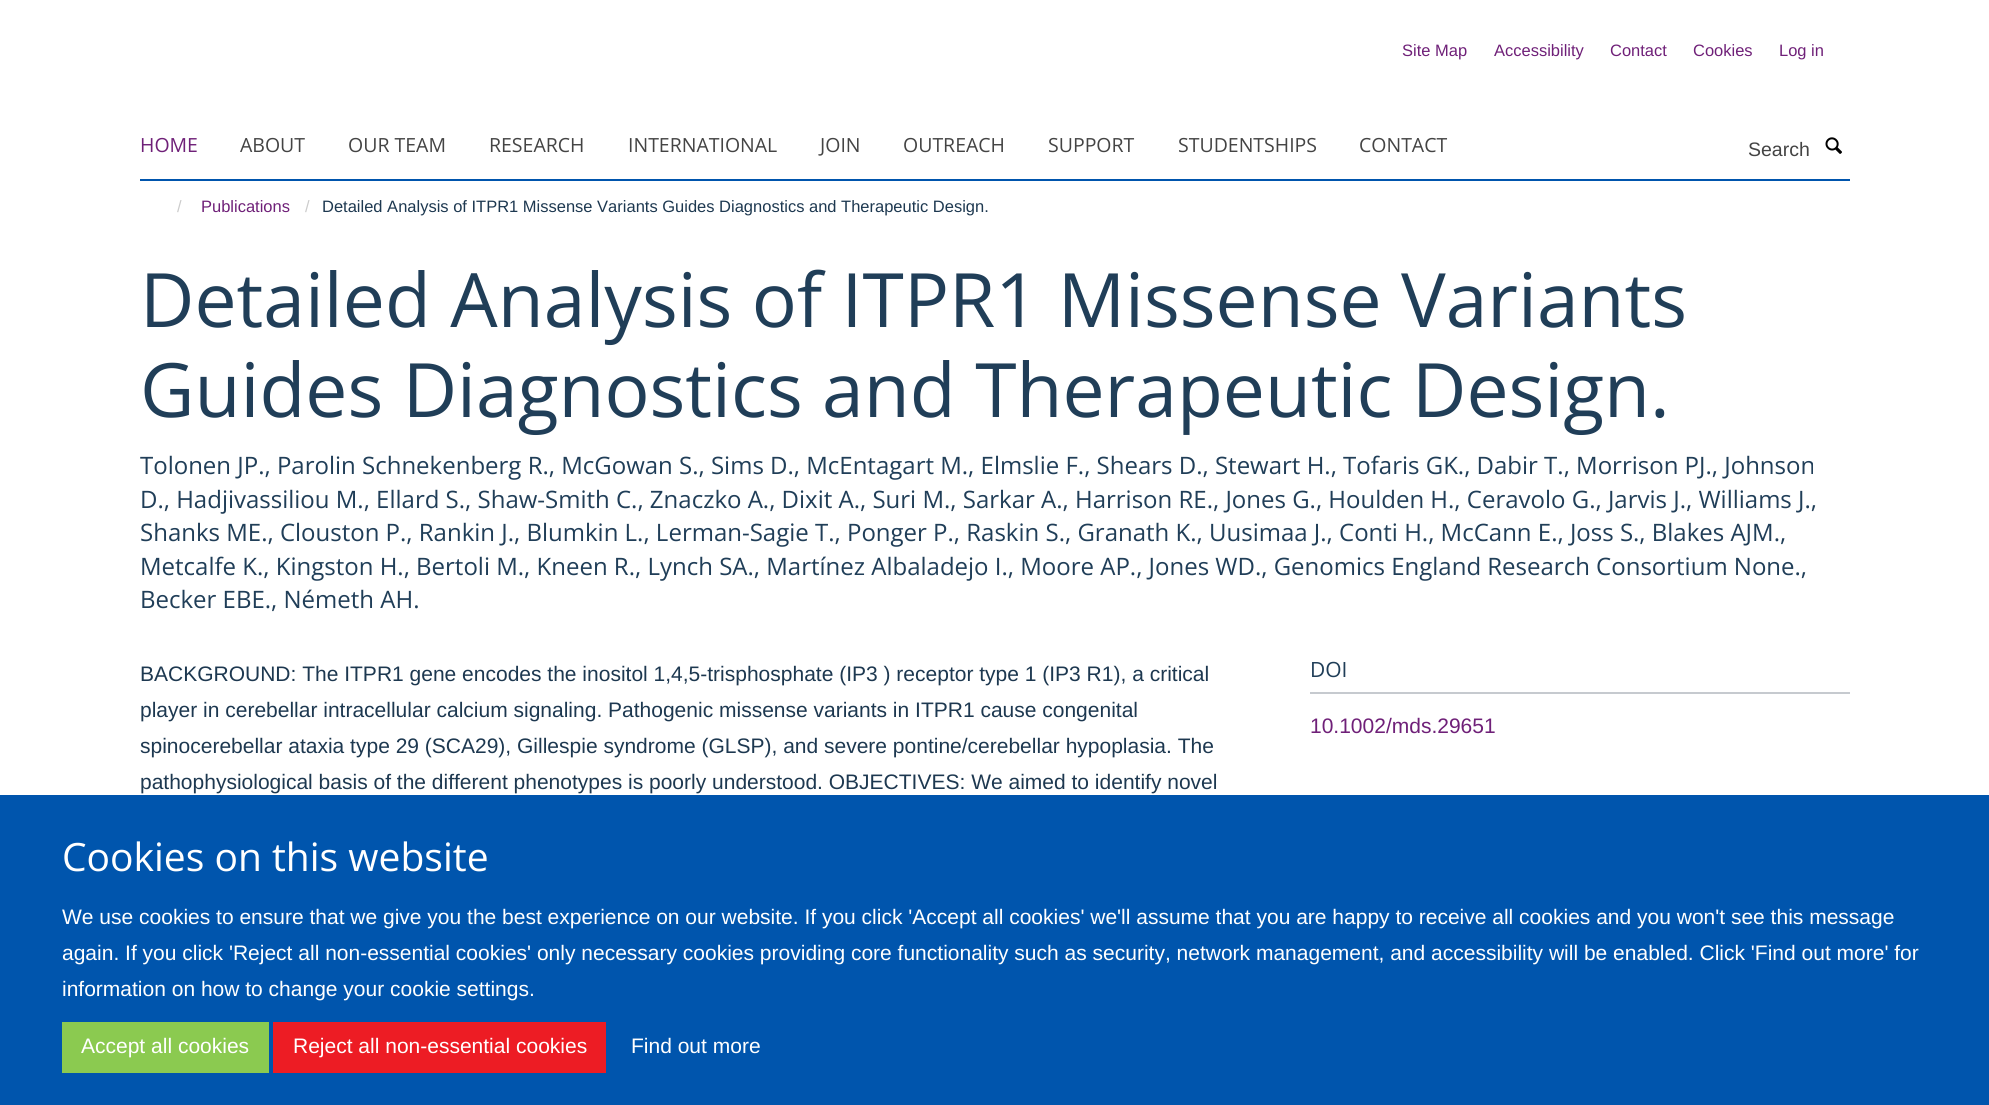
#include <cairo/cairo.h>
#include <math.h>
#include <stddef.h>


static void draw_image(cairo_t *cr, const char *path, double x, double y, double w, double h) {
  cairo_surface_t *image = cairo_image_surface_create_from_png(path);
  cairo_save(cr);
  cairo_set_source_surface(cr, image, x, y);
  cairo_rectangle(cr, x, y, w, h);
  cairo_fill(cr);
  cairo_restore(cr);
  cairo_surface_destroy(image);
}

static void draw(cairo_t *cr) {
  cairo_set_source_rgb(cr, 1, 1, 1);
  cairo_paint(cr);
  cairo_set_source_rgb(cr, 0, 85 / 255.0, 173 / 255.0);
  cairo_rectangle(cr, 140, 179, 1710, 2);
  cairo_fill(cr);
  draw_image(cr, "images/1.png", 1825, 137, 17, 17);
  cairo_set_source_rgb(cr, 198 / 255.0, 202 / 255.0, 207 / 255.0);
  cairo_rectangle(cr, 1310, 692, 540, 2);
  cairo_fill(cr);
  cairo_set_source_rgb(cr, 0, 85 / 255.0, 173 / 255.0);
  cairo_rectangle(cr, 0, 795, 1989, 310);
  cairo_fill(cr);
  cairo_set_source_rgb(cr, 139 / 255.0, 202 / 255.0, 80 / 255.0);
  cairo_rectangle(cr, 62, 1022, 207, 51);
  cairo_fill(cr);
  cairo_set_source_rgb(cr, 237 / 255.0, 28 / 255.0, 36 / 255.0);
  cairo_rectangle(cr, 273, 1022, 333, 51);
  cairo_fill(cr);
  cairo_select_font_face(cr, "Liberation Sans", CAIRO_FONT_SLANT_NORMAL, CAIRO_FONT_WEIGHT_NORMAL);
  cairo_set_font_size(cr, 16.5);
  cairo_set_source_rgb(cr, 111 / 255.0, 32 / 255.0, 120 / 255.0);
  cairo_move_to(cr, 1402, 56);
  cairo_show_text(cr, "Site Map");
  cairo_move_to(cr, 1494, 56);
  cairo_show_text(cr, "Accessibility");
  cairo_move_to(cr, 1610, 56);
  cairo_show_text(cr, "Contact");
  cairo_move_to(cr, 1693, 56);
  cairo_show_text(cr, "Cookies");
  cairo_move_to(cr, 1779, 56);
  cairo_show_text(cr, "Log in");
  cairo_select_font_face(cr, "Open Sans", CAIRO_FONT_SLANT_NORMAL, CAIRO_FONT_WEIGHT_NORMAL);
  cairo_set_font_size(cr, 19.5);
  cairo_move_to(cr, 140, 152);
  cairo_show_text(cr, "HOME");
  cairo_set_source_rgb(cr, 68 / 255.0, 68 / 255.0, 68 / 255.0);
  cairo_move_to(cr, 240, 152);
  cairo_show_text(cr, "ABOUT");
  cairo_move_to(cr, 348, 152);
  cairo_show_text(cr, "OUR TEAM");
  cairo_move_to(cr, 489, 152);
  cairo_show_text(cr, "RESEARCH");
  cairo_move_to(cr, 628, 152);
  cairo_show_text(cr, "INTERNATIONAL");
  cairo_move_to(cr, 820, 152);
  cairo_show_text(cr, "JOIN");
  cairo_move_to(cr, 903, 152);
  cairo_show_text(cr, "OUTREACH");
  cairo_move_to(cr, 1048, 152);
  cairo_show_text(cr, "SUPPORT");
  cairo_move_to(cr, 1178, 152);
  cairo_show_text(cr, "STUDENTSHIPS");
  cairo_move_to(cr, 1359, 152);
  cairo_show_text(cr, "CONTACT");
  cairo_select_font_face(cr, "Liberation Sans", CAIRO_FONT_SLANT_NORMAL, CAIRO_FONT_WEIGHT_NORMAL);
  cairo_move_to(cr, 1748, 156);
  cairo_show_text(cr, "Search");
  cairo_set_font_size(cr, 16.5);
  cairo_set_source_rgb(cr, 204 / 255.0, 204 / 255.0, 204 / 255.0);
  cairo_move_to(cr, 177, 212);
  cairo_show_text(cr, "/");
  cairo_set_source_rgb(cr, 111 / 255.0, 32 / 255.0, 120 / 255.0);
  cairo_move_to(cr, 201, 212);
  cairo_show_text(cr, "Publications");
  cairo_set_source_rgb(cr, 204 / 255.0, 204 / 255.0, 204 / 255.0);
  cairo_move_to(cr, 305, 212);
  cairo_show_text(cr, "/");
  cairo_set_source_rgb(cr, 29 / 255.0, 56 / 255.0, 80 / 255.0);
  cairo_move_to(cr, 322, 212);
  cairo_show_text(cr, "Detailed Analysis of ITPR1 Missense Variants Guides Diagnostics and Therapeutic Design.");
  cairo_select_font_face(cr, "Open Sans", CAIRO_FONT_SLANT_NORMAL, CAIRO_FONT_WEIGHT_NORMAL);
  cairo_set_font_size(cr, 75);
  cairo_set_source_rgb(cr, 32 / 255.0, 62 / 255.0, 88 / 255.0);
  cairo_move_to(cr, 140, 327);
  cairo_show_text(cr, "Detailed Analysis of ITPR1 Missense Variants");
  cairo_move_to(cr, 140, 417);
  cairo_show_text(cr, "Guides Diagnostics and Therapeutic Design.");
  cairo_set_font_size(cr, 24);
  cairo_move_to(cr, 140, 474);
  cairo_show_text(cr, "Tolonen JP., Parolin Schnekenberg R., McGowan S., Sims D., McEntagart M., Elmslie F., Shears D., Stewart H., Tofaris GK., Dabir T., Morrison PJ., Johnson");
  cairo_move_to(cr, 140, 508);
  cairo_show_text(cr, "D., Hadjivassiliou M., Ellard S., Shaw-Smith C., Znaczko A., Dixit A., Suri M., Sarkar A., Harrison RE., Jones G., Houlden H., Ceravolo G., Jarvis J., Williams J.,");
  cairo_move_to(cr, 140, 541);
  cairo_show_text(cr, "Shanks ME., Clouston P., Rankin J., Blumkin L., Lerman-Sagie T., Ponger P., Raskin S., Granath K., Uusimaa J., Conti H., McCann E., Joss S., Blakes AJM.,");
  cairo_move_to(cr, 140, 575);
  cairo_show_text(cr, "Metcalfe K., Kingston H., Bertoli M., Kneen R., Lynch SA., Martínez Albaladejo I., Moore AP., Jones WD., Genomics England Research Consortium None.,");
  cairo_move_to(cr, 140, 608);
  cairo_show_text(cr, "Becker EBE., Németh AH.");
  cairo_select_font_face(cr, "Liberation Sans", CAIRO_FONT_SLANT_NORMAL, CAIRO_FONT_WEIGHT_NORMAL);
  cairo_set_font_size(cr, 21);
  cairo_set_source_rgb(cr, 29 / 255.0, 56 / 255.0, 80 / 255.0);
  cairo_move_to(cr, 140, 681);
  cairo_show_text(cr, "BACKGROUND: The ITPR1 gene encodes the inositol 1,4,5-trisphosphate (IP3 ) receptor type 1 (IP3 R1), a critical");
  cairo_move_to(cr, 140, 717);
  cairo_show_text(cr, "player in cerebellar intracellular calcium signaling. Pathogenic missense variants in ITPR1 cause congenital");
  cairo_move_to(cr, 140, 753);
  cairo_show_text(cr, "spinocerebellar ataxia type 29 (SCA29), Gillespie syndrome (GLSP), and severe pontine/cerebellar hypoplasia. The");
  cairo_move_to(cr, 140, 789);
  cairo_show_text(cr, "pathophysiological basis of the different phenotypes is poorly understood. OBJECTIVES: We aimed to identify novel");
  cairo_select_font_face(cr, "Open Sans", CAIRO_FONT_SLANT_NORMAL, CAIRO_FONT_WEIGHT_NORMAL);
  cairo_set_source_rgb(cr, 32 / 255.0, 62 / 255.0, 88 / 255.0);
  cairo_move_to(cr, 1310, 677);
  cairo_show_text(cr, "DOI");
  cairo_select_font_face(cr, "Liberation Sans", CAIRO_FONT_SLANT_NORMAL, CAIRO_FONT_WEIGHT_NORMAL);
  cairo_set_source_rgb(cr, 111 / 255.0, 32 / 255.0, 120 / 255.0);
  cairo_move_to(cr, 1310, 733);
  cairo_show_text(cr, "10.1002/mds.29651");
  cairo_select_font_face(cr, "Open Sans", CAIRO_FONT_SLANT_NORMAL, CAIRO_FONT_WEIGHT_NORMAL);
  cairo_set_font_size(cr, 39);
  cairo_set_source_rgb(cr, 1, 1, 1);
  cairo_move_to(cr, 62, 871);
  cairo_show_text(cr, "Cookies on this website");
  cairo_select_font_face(cr, "Liberation Sans", CAIRO_FONT_SLANT_NORMAL, CAIRO_FONT_WEIGHT_NORMAL);
  cairo_set_font_size(cr, 21);
  cairo_move_to(cr, 62, 924);
  cairo_show_text(cr, "We use cookies to ensure that we give you the best experience on our website. If you click 'Accept all cookies' we'll assume that you are happy to receive all cookies and you won't see this message");
  cairo_move_to(cr, 62, 960);
  cairo_show_text(cr, "again. If you click 'Reject all non-essential cookies' only necessary cookies providing core functionality such as security, network management, and accessibility will be enabled. Click 'Find out more' for");
  cairo_move_to(cr, 62, 996);
  cairo_show_text(cr, "information on how to change your cookie settings.");
  cairo_move_to(cr, 81, 1053);
  cairo_show_text(cr, "Accept all cookies");
  cairo_move_to(cr, 293, 1053);
  cairo_show_text(cr, "Reject all non-essential cookies");
  cairo_move_to(cr, 631, 1053);
  cairo_show_text(cr, "Find out more");
}

int main(void) {
  cairo_surface_t *surface = cairo_image_surface_create(CAIRO_FORMAT_RGB24, 1989, 1105);
  cairo_t *cr = cairo_create(surface);
  cairo_font_options_t *options = cairo_font_options_create();
  cairo_font_options_set_hint_metrics(options, CAIRO_HINT_METRICS_OFF);
  cairo_font_options_set_hint_style(options, CAIRO_HINT_STYLE_NONE);
  cairo_set_font_options(cr, options);
  cairo_set_miter_limit(cr, 4);
  draw(cr);
  cairo_surface_write_to_png(surface, "out.png");
  cairo_font_options_destroy(options);
  cairo_destroy(cr);
  cairo_surface_destroy(surface);
  return 0;
}
